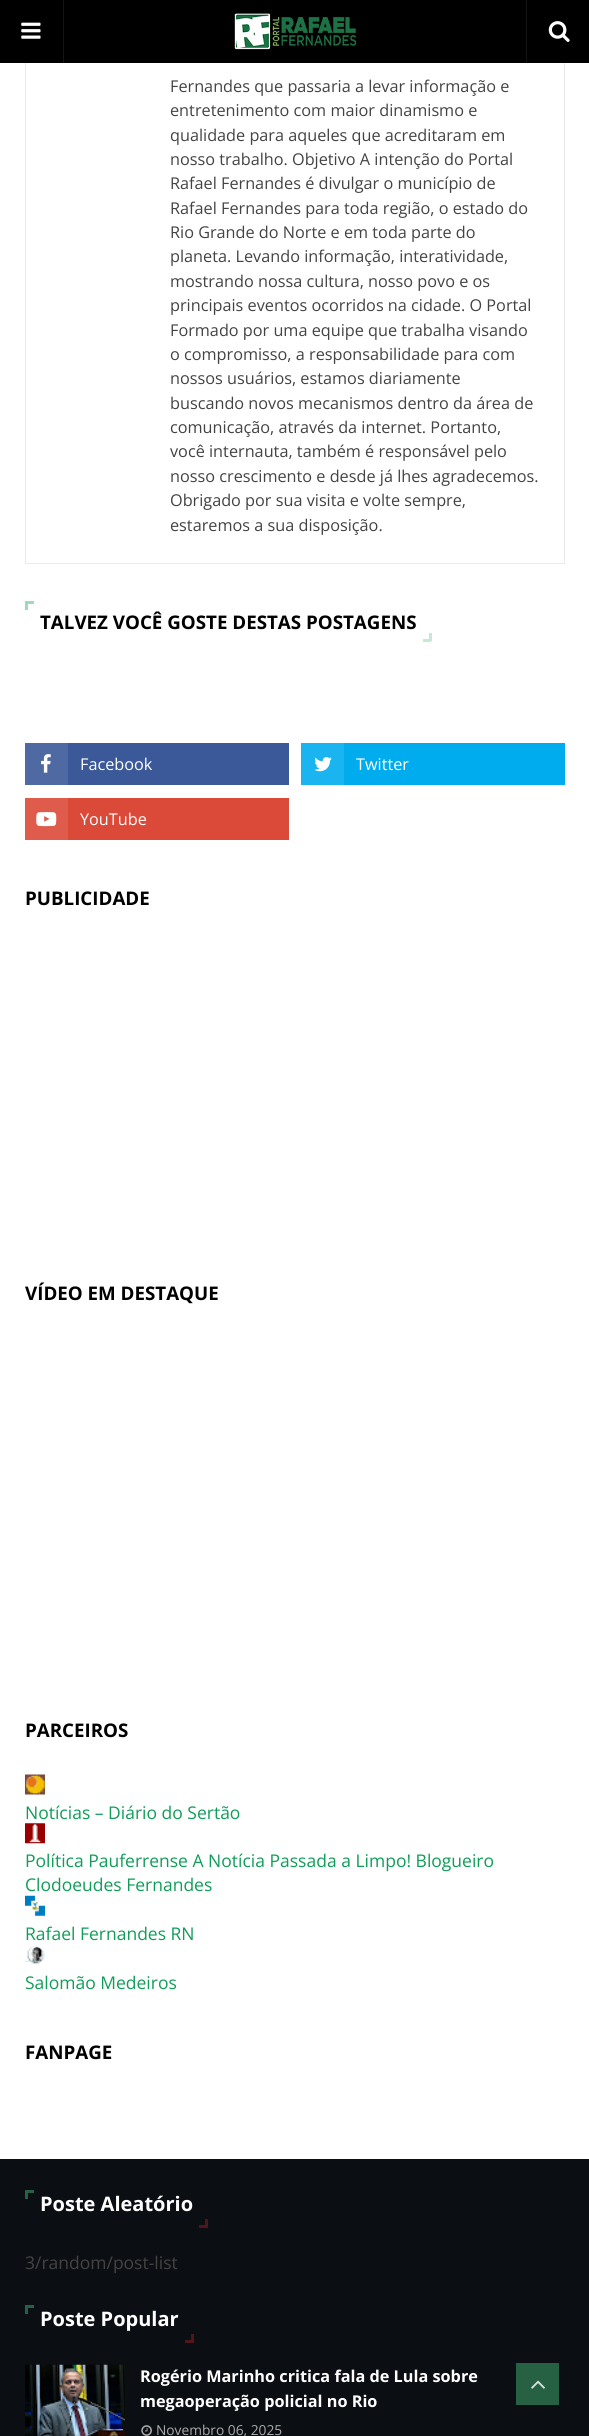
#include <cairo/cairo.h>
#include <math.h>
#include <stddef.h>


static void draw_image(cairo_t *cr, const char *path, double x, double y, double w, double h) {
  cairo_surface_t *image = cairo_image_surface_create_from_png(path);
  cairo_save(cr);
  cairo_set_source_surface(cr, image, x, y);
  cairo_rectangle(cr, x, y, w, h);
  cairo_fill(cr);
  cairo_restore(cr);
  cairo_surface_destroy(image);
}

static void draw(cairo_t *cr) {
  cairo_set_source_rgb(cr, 1, 1, 1);
  cairo_paint(cr);
  cairo_rectangle(cr, 25.5, -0.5, 539, 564);
  cairo_set_source_rgb(cr, 234 / 255.0, 234 / 255.0, 234 / 255.0);
  cairo_set_line_width(cr, 1);
  cairo_stroke(cr);
  cairo_set_source_rgb(cr, 0, 0, 0);
  cairo_rectangle(cr, 0, 0, 589, 63);
  cairo_fill(cr);
  cairo_set_source_rgb(cr, 20 / 255.0, 20 / 255.0, 20 / 255.0);
  cairo_rectangle(cr, 63, 0, 1, 63);
  cairo_fill(cr);
  draw_image(cr, "images/1.png", 21, 22, 20, 17);
  draw_image(cr, "images/2.png", 234, 13, 123, 37);
  cairo_rectangle(cr, 526, 0, 1, 63);
  cairo_fill(cr);
  draw_image(cr, "images/3.png", 548, 21, 22, 21);
  cairo_set_source_rgb(cr, 160 / 255.0, 217 / 255.0, 186 / 255.0);
  cairo_rectangle(cr, 25, 601, 9, 3);
  cairo_fill(cr);
  cairo_rectangle(cr, 25, 601, 3, 9);
  cairo_fill(cr);
  cairo_set_source_rgb(cr, 198 / 255.0, 232 / 255.0, 214 / 255.0);
  cairo_rectangle(cr, 429, 633, 3, 8);
  cairo_fill(cr);
  cairo_rectangle(cr, 423, 639, 8, 3);
  cairo_fill(cr);
  cairo_set_source_rgb(cr, 59 / 255.0, 89 / 255.0, 153 / 255.0);
  cairo_rectangle(cr, 68, 743, 221, 42);
  cairo_fill(cr);
  cairo_set_source_rgb(cr, 79 / 255.0, 106 / 255.0, 163 / 255.0);
  cairo_rectangle(cr, 25, 743, 43, 42);
  cairo_fill(cr);
  draw_image(cr, "images/4.png", 41, 754, 10, 19);
  cairo_set_source_rgb(cr, 0, 172 / 255.0, 238 / 255.0);
  cairo_rectangle(cr, 344, 743, 221, 42);
  cairo_fill(cr);
  cairo_set_source_rgb(cr, 26 / 255.0, 180 / 255.0, 240 / 255.0);
  cairo_rectangle(cr, 301, 743, 43, 42);
  cairo_fill(cr);
  draw_image(cr, "images/5.png", 314, 757, 18, 15);
  cairo_set_source_rgb(cr, 219 / 255.0, 74 / 255.0, 57 / 255.0);
  cairo_rectangle(cr, 68, 798, 221, 42);
  cairo_fill(cr);
  cairo_set_source_rgb(cr, 223 / 255.0, 92 / 255.0, 77 / 255.0);
  cairo_rectangle(cr, 25, 798, 43, 42);
  cairo_fill(cr);
  draw_image(cr, "images/6.png", 36, 812, 21, 15);
  draw_image(cr, "images/7.png", 25, 1774, 20, 21);
  draw_image(cr, "images/8.png", 25, 1823, 20, 21);
  draw_image(cr, "images/9.png", 25, 1895, 20, 21);
  draw_image(cr, "images/10.png", 25, 1945, 20, 19);
  cairo_set_source_rgb(cr, 11 / 255.0, 14 / 255.0, 19 / 255.0);
  cairo_rectangle(cr, 0, 2159, 589, 277);
  cairo_fill(cr);
  cairo_set_source_rgb(cr, 38 / 255.0, 97 / 255.0, 68 / 255.0);
  cairo_rectangle(cr, 25, 2190, 9, 3);
  cairo_fill(cr);
  cairo_rectangle(cr, 25, 2190, 3, 9);
  cairo_fill(cr);
  cairo_set_source_rgb(cr, 82 / 255.0, 22 / 255.0, 26 / 255.0);
  cairo_rectangle(cr, 205, 2219, 3, 9);
  cairo_fill(cr);
  cairo_rectangle(cr, 199, 2225, 9, 3);
  cairo_fill(cr);
  cairo_set_source_rgb(cr, 38 / 255.0, 97 / 255.0, 68 / 255.0);
  cairo_rectangle(cr, 25, 2305, 9, 3);
  cairo_fill(cr);
  cairo_rectangle(cr, 25, 2305, 3, 9);
  cairo_fill(cr);
  cairo_set_source_rgb(cr, 82 / 255.0, 22 / 255.0, 26 / 255.0);
  cairo_rectangle(cr, 191, 2334, 3, 9);
  cairo_fill(cr);
  cairo_rectangle(cr, 185, 2340, 9, 3);
  cairo_fill(cr);
  draw_image(cr, "images/11.png", 25, 2364, 100, 72);
  draw_image(cr, "images/12.png", 141, 2425, 11, 11);
  cairo_set_source_rgb(cr, 38 / 255.0, 97 / 255.0, 68 / 255.0);
  cairo_rectangle(cr, 516, 2363, 43, 42);
  cairo_fill(cr);
  draw_image(cr, "images/13.png", 531, 2380, 14, 9);
  cairo_select_font_face(cr, "Open Sans", CAIRO_FONT_SLANT_NORMAL, CAIRO_FONT_WEIGHT_NORMAL);
  cairo_set_font_size(cr, 16.25);
  cairo_set_source_rgb(cr, 67 / 255.0, 67 / 255.0, 67 / 255.0);
  cairo_move_to(cr, 170, 92);
  cairo_show_text(cr, "Fernandes que passaria a levar informação e");
  cairo_move_to(cr, 170, 116);
  cairo_show_text(cr, "entretenimento com maior dinamismo e");
  cairo_move_to(cr, 170, 141);
  cairo_show_text(cr, "qualidade para aqueles que acreditaram em");
  cairo_move_to(cr, 170, 165);
  cairo_show_text(cr, "nosso trabalho. Objetivo A intenção do Portal");
  cairo_move_to(cr, 170, 189);
  cairo_show_text(cr, "Rafael Fernandes é divulgar o município de");
  cairo_move_to(cr, 170, 214);
  cairo_show_text(cr, "Rafael Fernandes para toda região, o estado do");
  cairo_move_to(cr, 170, 238);
  cairo_show_text(cr, "Rio Grande do Norte e em toda parte do");
  cairo_move_to(cr, 170, 262);
  cairo_show_text(cr, "planeta. Levando informação, interatividade,");
  cairo_move_to(cr, 170, 287);
  cairo_show_text(cr, "mostrando nossa cultura, nosso povo e os");
  cairo_move_to(cr, 170, 311);
  cairo_show_text(cr, "principais eventos ocorridos na cidade. O Portal");
  cairo_move_to(cr, 170, 336);
  cairo_show_text(cr, "Formado por uma equipe que trabalha visando");
  cairo_move_to(cr, 170, 360);
  cairo_show_text(cr, "o compromisso, a responsabilidade para com");
  cairo_move_to(cr, 170, 384);
  cairo_show_text(cr, "nossos usuários, estamos diariamente");
  cairo_move_to(cr, 170, 409);
  cairo_show_text(cr, "buscando novos mecanismos dentro da área de");
  cairo_move_to(cr, 170, 433);
  cairo_show_text(cr, "comunicação, através da internet. Portanto,");
  cairo_move_to(cr, 170, 457);
  cairo_show_text(cr, "você internauta, também é responsável pelo");
  cairo_move_to(cr, 170, 482);
  cairo_show_text(cr, "nosso crescimento e desde já lhes agradecemos.");
  cairo_move_to(cr, 170, 506);
  cairo_show_text(cr, "Obrigado por sua visita e volte sempre,");
  cairo_move_to(cr, 170, 531);
  cairo_show_text(cr, "estaremos a sua disposição.");
  cairo_select_font_face(cr, "Open Sans", CAIRO_FONT_SLANT_NORMAL, CAIRO_FONT_WEIGHT_BOLD);
  cairo_set_font_size(cr, 18.75);
  cairo_set_source_rgb(cr, 0, 0, 0);
  cairo_move_to(cr, 40, 629);
  cairo_show_text(cr, "TALVEZ VOCÊ GOSTE DESTAS POSTAGENS");
  cairo_select_font_face(cr, "Open Sans", CAIRO_FONT_SLANT_NORMAL, CAIRO_FONT_WEIGHT_NORMAL);
  cairo_set_font_size(cr, 16.25);
  cairo_set_source_rgb(cr, 1, 1, 1);
  cairo_move_to(cr, 80, 770);
  cairo_show_text(cr, "Facebook");
  cairo_move_to(cr, 356, 770);
  cairo_show_text(cr, "Twitter");
  cairo_move_to(cr, 80, 825);
  cairo_show_text(cr, "YouTube");
  cairo_select_font_face(cr, "Open Sans", CAIRO_FONT_SLANT_NORMAL, CAIRO_FONT_WEIGHT_BOLD);
  cairo_set_font_size(cr, 18.75);
  cairo_set_source_rgb(cr, 0, 0, 0);
  cairo_move_to(cr, 25, 905);
  cairo_show_text(cr, "PUBLICIDADE");
  cairo_move_to(cr, 25, 1300);
  cairo_show_text(cr, "VÍDEO EM DESTAQUE");
  cairo_move_to(cr, 25, 1737);
  cairo_show_text(cr, "PARCEIROS");
  cairo_select_font_face(cr, "Open Sans", CAIRO_FONT_SLANT_NORMAL, CAIRO_FONT_WEIGHT_NORMAL);
  cairo_set_font_size(cr, 17.5);
  cairo_set_source_rgb(cr, 15 / 255.0, 157 / 255.0, 88 / 255.0);
  cairo_move_to(cr, 25, 1819);
  cairo_show_text(cr, "Notícias – Diário do Sertão");
  cairo_move_to(cr, 25, 1867);
  cairo_show_text(cr, "Política Pauferrense A Notícia Passada a Limpo! Blogueiro");
  cairo_move_to(cr, 25, 1891);
  cairo_show_text(cr, "Clodoeudes Fernandes");
  cairo_move_to(cr, 25, 1940);
  cairo_show_text(cr, "Rafael Fernandes RN");
  cairo_move_to(cr, 25, 1989);
  cairo_show_text(cr, "Salomão Medeiros");
  cairo_select_font_face(cr, "Open Sans", CAIRO_FONT_SLANT_NORMAL, CAIRO_FONT_WEIGHT_BOLD);
  cairo_set_font_size(cr, 18.75);
  cairo_set_source_rgb(cr, 0, 0, 0);
  cairo_move_to(cr, 25, 2059);
  cairo_show_text(cr, "FANPAGE");
  cairo_set_font_size(cr, 20);
  cairo_set_source_rgb(cr, 1, 1, 1);
  cairo_move_to(cr, 40, 2211);
  cairo_show_text(cr, "Poste Aleatório");
  cairo_select_font_face(cr, "Open Sans", CAIRO_FONT_SLANT_NORMAL, CAIRO_FONT_WEIGHT_NORMAL);
  cairo_set_font_size(cr, 17.5);
  cairo_set_source_rgb(cr, 67 / 255.0, 67 / 255.0, 67 / 255.0);
  cairo_move_to(cr, 25, 2269);
  cairo_show_text(cr, "3/random/post-list");
  cairo_select_font_face(cr, "Open Sans", CAIRO_FONT_SLANT_NORMAL, CAIRO_FONT_WEIGHT_BOLD);
  cairo_set_font_size(cr, 20);
  cairo_set_source_rgb(cr, 1, 1, 1);
  cairo_move_to(cr, 40, 2326);
  cairo_show_text(cr, "Poste Popular");
  cairo_set_font_size(cr, 16.25);
  cairo_move_to(cr, 140, 2382);
  cairo_show_text(cr, "Rogério Marinho critica fala de Lula sobre");
  cairo_move_to(cr, 140, 2407);
  cairo_show_text(cr, "megaoperação policial no Rio");
  cairo_select_font_face(cr, "Open Sans", CAIRO_FONT_SLANT_NORMAL, CAIRO_FONT_WEIGHT_NORMAL);
  cairo_set_font_size(cr, 13.75);
  cairo_set_source_rgb(cr, 170 / 255.0, 170 / 255.0, 170 / 255.0);
  cairo_move_to(cr, 156, 2435);
  cairo_show_text(cr, "Novembro 06, 2025");
}

int main(void) {
  cairo_surface_t *surface = cairo_image_surface_create(CAIRO_FORMAT_RGB24, 589, 2436);
  cairo_t *cr = cairo_create(surface);
  cairo_font_options_t *options = cairo_font_options_create();
  cairo_font_options_set_hint_metrics(options, CAIRO_HINT_METRICS_OFF);
  cairo_font_options_set_hint_style(options, CAIRO_HINT_STYLE_NONE);
  cairo_set_font_options(cr, options);
  cairo_set_miter_limit(cr, 4);
  draw(cr);
  cairo_surface_write_to_png(surface, "out.png");
  cairo_font_options_destroy(options);
  cairo_destroy(cr);
  cairo_surface_destroy(surface);
  return 0;
}
